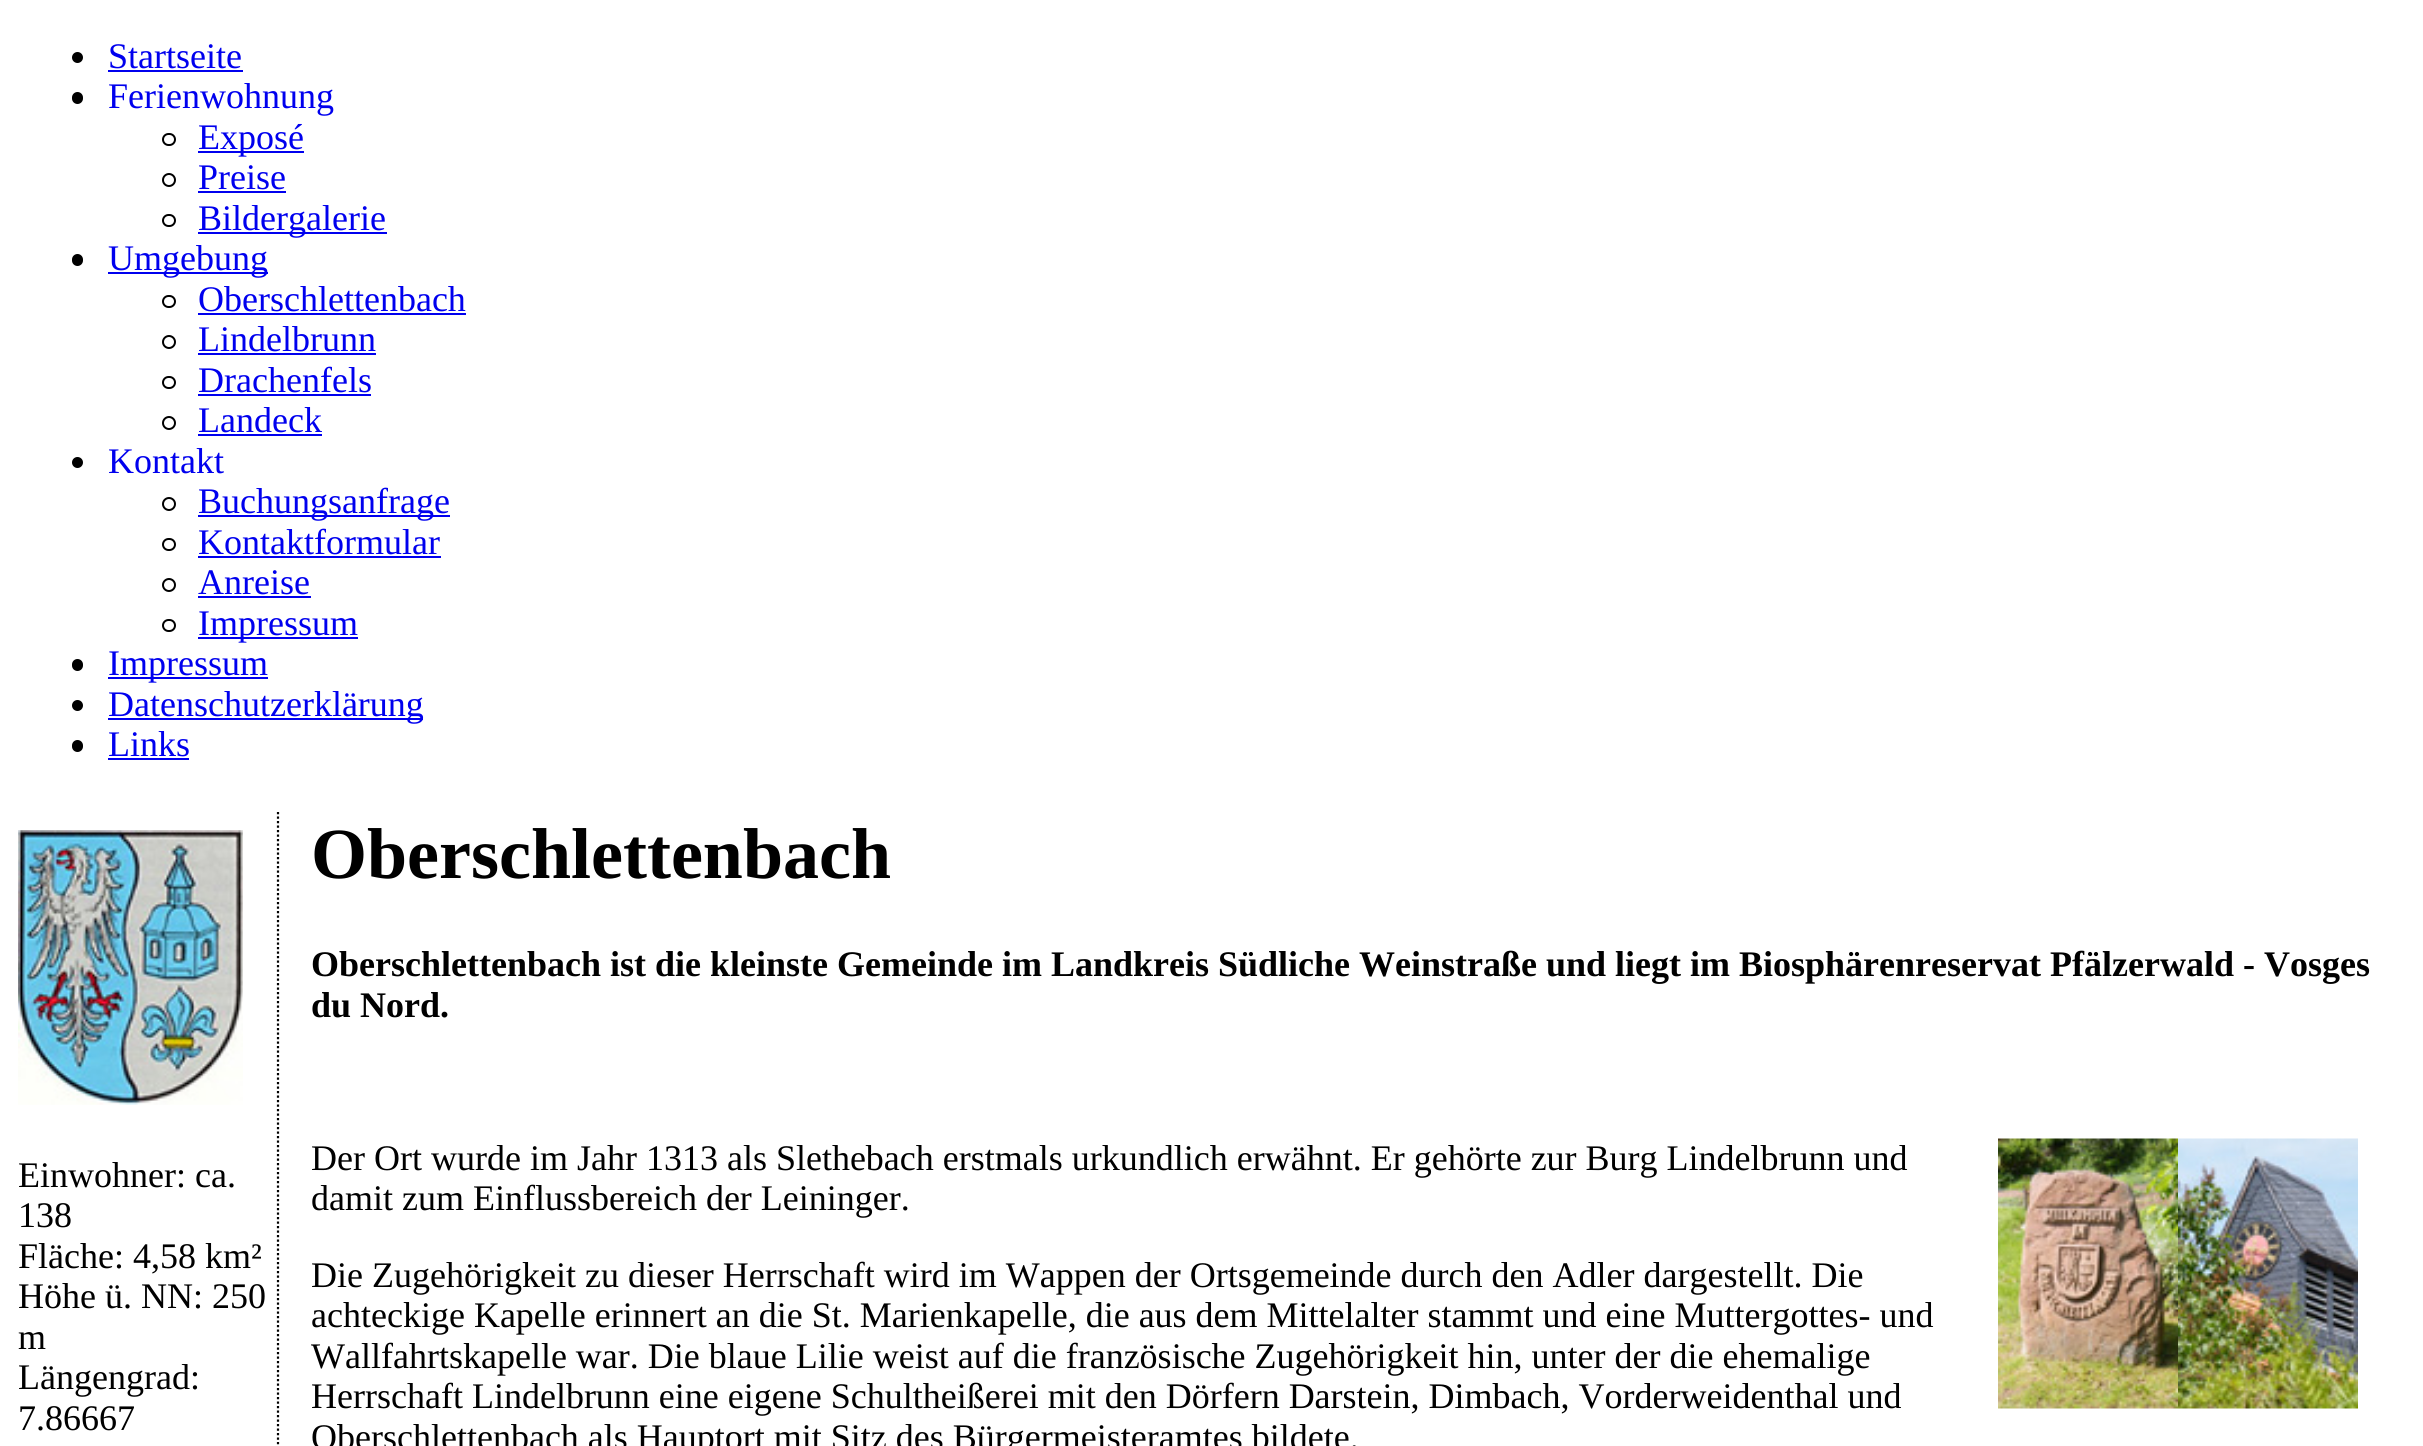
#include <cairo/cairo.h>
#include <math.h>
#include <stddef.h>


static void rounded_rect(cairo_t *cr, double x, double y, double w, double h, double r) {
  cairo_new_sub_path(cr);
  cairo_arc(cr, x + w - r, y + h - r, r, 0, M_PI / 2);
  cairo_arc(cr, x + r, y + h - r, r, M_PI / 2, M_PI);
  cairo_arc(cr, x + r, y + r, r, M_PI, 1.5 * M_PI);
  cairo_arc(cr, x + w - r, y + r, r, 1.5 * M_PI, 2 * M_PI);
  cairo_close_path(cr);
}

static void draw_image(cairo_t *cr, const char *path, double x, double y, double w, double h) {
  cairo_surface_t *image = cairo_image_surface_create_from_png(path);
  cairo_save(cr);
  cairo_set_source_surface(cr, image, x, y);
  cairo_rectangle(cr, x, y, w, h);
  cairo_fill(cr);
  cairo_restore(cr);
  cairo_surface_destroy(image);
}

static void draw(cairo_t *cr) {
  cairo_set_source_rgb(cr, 1, 1, 1);
  cairo_paint(cr);
  cairo_set_source_rgb(cr, 0, 0, 0);
  cairo_arc(cr, 77.5, 57.5, 5.5, 0, 2 * M_PI);
  cairo_fill(cr);
  cairo_set_source_rgb(cr, 0, 0, 238 / 255.0);
  cairo_rectangle(cr, 108, 70, 135, 2);
  cairo_fill(cr);
  cairo_set_source_rgb(cr, 0, 0, 0);
  rounded_rect(cr, 72, 92, 11, 12, 5.5);
  cairo_fill(cr);
  rounded_rect(cr, 163, 134, 12, 11, 5.5);
  cairo_stroke(cr);
  cairo_set_source_rgb(cr, 0, 0, 238 / 255.0);
  cairo_rectangle(cr, 198, 151, 106, 2);
  cairo_fill(cr);
  cairo_arc(cr, 169, 180, 6, 0, 2 * M_PI);
  cairo_set_source_rgb(cr, 0, 0, 0);
  cairo_stroke(cr);
  cairo_set_source_rgb(cr, 0, 0, 238 / 255.0);
  cairo_rectangle(cr, 198, 191, 88, 2);
  cairo_fill(cr);
  rounded_rect(cr, 163, 215, 12, 11, 5.5);
  cairo_set_source_rgb(cr, 0, 0, 0);
  cairo_stroke(cr);
  cairo_set_source_rgb(cr, 0, 0, 238 / 255.0);
  cairo_rectangle(cr, 198, 232, 189, 2);
  cairo_fill(cr);
  cairo_set_source_rgb(cr, 0, 0, 0);
  rounded_rect(cr, 72, 254, 11, 12, 5.5);
  cairo_fill(cr);
  cairo_set_source_rgb(cr, 0, 0, 238 / 255.0);
  cairo_rectangle(cr, 108, 272, 160, 2);
  cairo_fill(cr);
  rounded_rect(cr, 163, 296, 12, 11, 5.5);
  cairo_set_source_rgb(cr, 0, 0, 0);
  cairo_stroke(cr);
  cairo_set_source_rgb(cr, 0, 0, 238 / 255.0);
  cairo_rectangle(cr, 198, 313, 268, 2);
  cairo_fill(cr);
  cairo_arc(cr, 169, 342, 6, 0, 2 * M_PI);
  cairo_set_source_rgb(cr, 0, 0, 0);
  cairo_stroke(cr);
  cairo_set_source_rgb(cr, 0, 0, 238 / 255.0);
  cairo_rectangle(cr, 198, 353, 178, 2);
  cairo_fill(cr);
  rounded_rect(cr, 163, 377, 12, 11, 5.5);
  cairo_set_source_rgb(cr, 0, 0, 0);
  cairo_stroke(cr);
  cairo_set_source_rgb(cr, 0, 0, 238 / 255.0);
  cairo_rectangle(cr, 198, 394, 173, 2);
  cairo_fill(cr);
  cairo_arc(cr, 169, 423, 6, 0, 2 * M_PI);
  cairo_set_source_rgb(cr, 0, 0, 0);
  cairo_stroke(cr);
  cairo_set_source_rgb(cr, 0, 0, 238 / 255.0);
  cairo_rectangle(cr, 198, 434, 124, 2);
  cairo_fill(cr);
  cairo_set_source_rgb(cr, 0, 0, 0);
  cairo_arc(cr, 77.5, 462.5, 5.5, 0, 2 * M_PI);
  cairo_fill(cr);
  cairo_arc(cr, 169, 504, 6, 0, 2 * M_PI);
  cairo_stroke(cr);
  cairo_set_source_rgb(cr, 0, 0, 238 / 255.0);
  cairo_rectangle(cr, 198, 515, 252, 2);
  cairo_fill(cr);
  rounded_rect(cr, 163, 539, 12, 11, 5.5);
  cairo_set_source_rgb(cr, 0, 0, 0);
  cairo_stroke(cr);
  cairo_set_source_rgb(cr, 0, 0, 238 / 255.0);
  cairo_rectangle(cr, 198, 556, 243, 2);
  cairo_fill(cr);
  cairo_arc(cr, 169, 585, 6, 0, 2 * M_PI);
  cairo_set_source_rgb(cr, 0, 0, 0);
  cairo_stroke(cr);
  cairo_set_source_rgb(cr, 0, 0, 238 / 255.0);
  cairo_rectangle(cr, 198, 596, 113, 2);
  cairo_fill(cr);
  rounded_rect(cr, 163, 620, 12, 11, 5.5);
  cairo_set_source_rgb(cr, 0, 0, 0);
  cairo_stroke(cr);
  cairo_set_source_rgb(cr, 0, 0, 238 / 255.0);
  cairo_rectangle(cr, 198, 637, 160, 2);
  cairo_fill(cr);
  cairo_set_source_rgb(cr, 0, 0, 0);
  rounded_rect(cr, 72, 659, 11, 12, 5.5);
  cairo_fill(cr);
  cairo_set_source_rgb(cr, 0, 0, 238 / 255.0);
  cairo_rectangle(cr, 108, 677, 160, 2);
  cairo_fill(cr);
  cairo_set_source_rgb(cr, 0, 0, 0);
  cairo_arc(cr, 77.5, 705.5, 5.5, 0, 2 * M_PI);
  cairo_fill(cr);
  cairo_set_source_rgb(cr, 0, 0, 238 / 255.0);
  cairo_rectangle(cr, 108, 718, 315, 2);
  cairo_fill(cr);
  cairo_set_source_rgb(cr, 0, 0, 0);
  rounded_rect(cr, 72, 740, 11, 12, 5.5);
  cairo_fill(cr);
  cairo_set_source_rgb(cr, 0, 0, 238 / 255.0);
  cairo_rectangle(cr, 108, 758, 81, 2);
  cairo_fill(cr);
  cairo_new_path(cr);
  cairo_move_to(cr, 278, 812);
  cairo_line_to(cr, 278, 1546);
  cairo_set_source_rgb(cr, 0, 0, 0);
  cairo_set_line_width(cr, 2.2);
  cairo_set_dash(cr, (double[]){2.25, 2.25}, 2, 0);
  cairo_stroke(cr);
  draw_image(cr, "images/1.png", 18, 830, 225, 275);
  draw_image(cr, "images/2.png", 1998, 1138, 180, 271);
  draw_image(cr, "images/3.png", 2178, 1138, 180, 271);
  cairo_select_font_face(cr, "Liberation Serif", CAIRO_FONT_SLANT_NORMAL, CAIRO_FONT_WEIGHT_NORMAL);
  cairo_set_font_size(cr, 36);
  cairo_set_source_rgb(cr, 0, 0, 238 / 255.0);
  cairo_move_to(cr, 108, 68);
  cairo_show_text(cr, "Startseite");
  cairo_move_to(cr, 108, 108);
  cairo_show_text(cr, "Ferienwohnung");
  cairo_move_to(cr, 198, 149);
  cairo_show_text(cr, "Exposé");
  cairo_move_to(cr, 198, 189);
  cairo_show_text(cr, "Preise");
  cairo_move_to(cr, 198, 230);
  cairo_show_text(cr, "Bildergalerie");
  cairo_move_to(cr, 108, 270);
  cairo_show_text(cr, "Umgebung");
  cairo_move_to(cr, 198, 311);
  cairo_show_text(cr, "Oberschlettenbach");
  cairo_move_to(cr, 198, 351);
  cairo_show_text(cr, "Lindelbrunn");
  cairo_move_to(cr, 198, 392);
  cairo_show_text(cr, "Drachenfels");
  cairo_move_to(cr, 198, 432);
  cairo_show_text(cr, "Landeck");
  cairo_move_to(cr, 108, 473);
  cairo_show_text(cr, "Kontakt");
  cairo_move_to(cr, 198, 513);
  cairo_show_text(cr, "Buchungsanfrage");
  cairo_move_to(cr, 198, 554);
  cairo_show_text(cr, "Kontaktformular");
  cairo_move_to(cr, 198, 594);
  cairo_show_text(cr, "Anreise");
  cairo_move_to(cr, 198, 635);
  cairo_show_text(cr, "Impressum");
  cairo_move_to(cr, 108, 675);
  cairo_show_text(cr, "Impressum");
  cairo_move_to(cr, 108, 716);
  cairo_show_text(cr, "Datenschutzerklärung");
  cairo_move_to(cr, 108, 756);
  cairo_show_text(cr, "Links");
  cairo_set_source_rgb(cr, 0, 0, 0);
  cairo_move_to(cr, 18, 1187);
  cairo_show_text(cr, "Einwohner: ca.");
  cairo_move_to(cr, 18, 1227);
  cairo_show_text(cr, "138");
  cairo_move_to(cr, 18, 1268);
  cairo_show_text(cr, "Fläche: 4,58 km²");
  cairo_move_to(cr, 18, 1308);
  cairo_show_text(cr, "Höhe ü. NN: 250");
  cairo_move_to(cr, 18, 1349);
  cairo_show_text(cr, "m");
  cairo_move_to(cr, 18, 1389);
  cairo_show_text(cr, "Längengrad:");
  cairo_move_to(cr, 18, 1430);
  cairo_show_text(cr, "7.86667");
  cairo_select_font_face(cr, "Liberation Serif", CAIRO_FONT_SLANT_NORMAL, CAIRO_FONT_WEIGHT_BOLD);
  cairo_set_font_size(cr, 72);
  cairo_move_to(cr, 311, 878);
  cairo_show_text(cr, "Oberschlettenbach");
  cairo_set_font_size(cr, 36);
  cairo_move_to(cr, 311, 976);
  cairo_show_text(cr, "Oberschlettenbach ist die kleinste Gemeinde im Landkreis Südliche Weinstraße und liegt im Biosphärenreservat Pfälzerwald - Vosges");
  cairo_move_to(cr, 311, 1017);
  cairo_show_text(cr, "du Nord.");
  cairo_select_font_face(cr, "Liberation Serif", CAIRO_FONT_SLANT_NORMAL, CAIRO_FONT_WEIGHT_NORMAL);
  cairo_move_to(cr, 311, 1170);
  cairo_show_text(cr, "Der Ort wurde im Jahr 1313 als Slethebach erstmals urkundlich erwähnt. Er gehörte zur Burg Lindelbrunn und");
  cairo_move_to(cr, 311, 1210);
  cairo_show_text(cr, "damit zum Einflussbereich der Leininger.");
  cairo_move_to(cr, 311, 1287);
  cairo_show_text(cr, "Die Zugehörigkeit zu dieser Herrschaft wird im Wappen der Ortsgemeinde durch den Adler dargestellt. Die");
  cairo_move_to(cr, 311, 1327);
  cairo_show_text(cr, "achteckige Kapelle erinnert an die St. Marienkapelle, die aus dem Mittelalter stammt und eine Muttergottes- und");
  cairo_move_to(cr, 311, 1368);
  cairo_show_text(cr, "Wallfahrtskapelle war. Die blaue Lilie weist auf die französische Zugehörigkeit hin, unter der die ehemalige");
  cairo_move_to(cr, 311, 1408);
  cairo_show_text(cr, "Herrschaft Lindelbrunn eine eigene Schultheißerei mit den Dörfern Darstein, Dimbach, Vorderweidenthal und");
  cairo_move_to(cr, 311, 1449);
  cairo_show_text(cr, "Oberschlettenbach als Hauptort mit Sitz des Bürgermeisteramtes bildete.");
}

int main(void) {
  cairo_surface_t *surface = cairo_image_surface_create(CAIRO_FORMAT_RGB24, 2423, 1446);
  cairo_t *cr = cairo_create(surface);
  cairo_font_options_t *options = cairo_font_options_create();
  cairo_font_options_set_hint_metrics(options, CAIRO_HINT_METRICS_OFF);
  cairo_font_options_set_hint_style(options, CAIRO_HINT_STYLE_NONE);
  cairo_set_font_options(cr, options);
  cairo_set_miter_limit(cr, 4);
  draw(cr);
  cairo_surface_write_to_png(surface, "out.png");
  cairo_font_options_destroy(options);
  cairo_destroy(cr);
  cairo_surface_destroy(surface);
  return 0;
}
